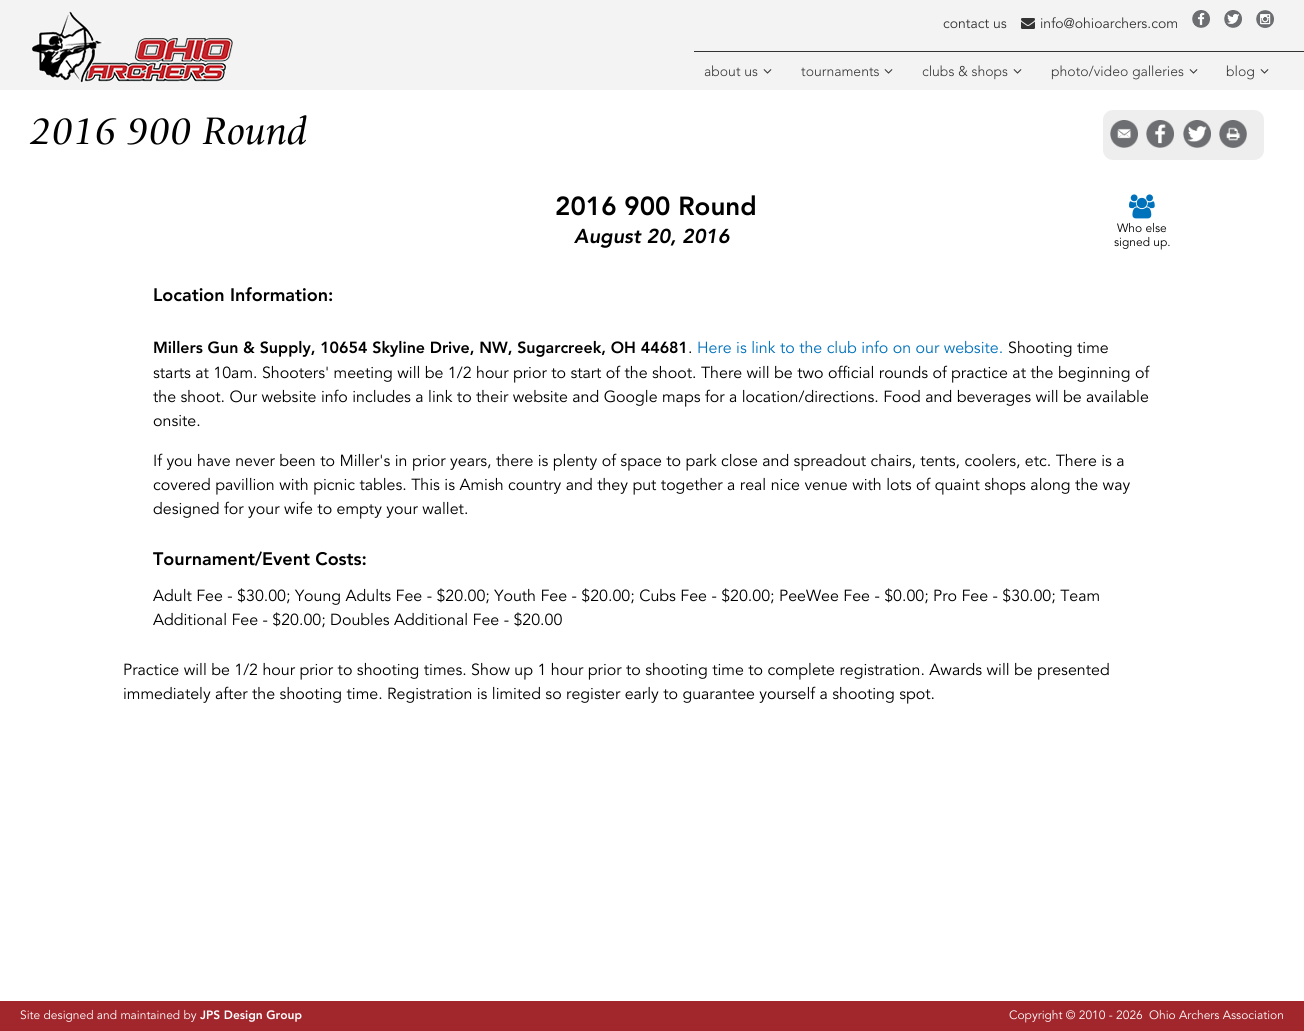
#include <cairo/cairo.h>
#include <math.h>
#include <stddef.h>


static void rounded_rect(cairo_t *cr, double x, double y, double w, double h, double r) {
  cairo_new_sub_path(cr);
  cairo_arc(cr, x + w - r, y + h - r, r, 0, M_PI / 2);
  cairo_arc(cr, x + r, y + h - r, r, M_PI / 2, M_PI);
  cairo_arc(cr, x + r, y + r, r, M_PI, 1.5 * M_PI);
  cairo_arc(cr, x + w - r, y + r, r, 1.5 * M_PI, 2 * M_PI);
  cairo_close_path(cr);
}

static void draw_image(cairo_t *cr, const char *path, double x, double y, double w, double h) {
  cairo_surface_t *image = cairo_image_surface_create_from_png(path);
  cairo_save(cr);
  cairo_set_source_surface(cr, image, x, y);
  cairo_rectangle(cr, x, y, w, h);
  cairo_fill(cr);
  cairo_restore(cr);
  cairo_surface_destroy(image);
}

static void draw(cairo_t *cr) {
  cairo_set_source_rgb(cr, 1, 1, 1);
  cairo_paint(cr);
  cairo_set_source_rgb(cr, 244 / 255.0, 243 / 255.0, 243 / 255.0);
  cairo_rectangle(cr, 0, 0, 1304, 90);
  cairo_fill(cr);
  draw_image(cr, "images/1.png", 31, 11, 202, 73);
  draw_image(cr, "images/2.png", 1021, 18, 14, 11);
  draw_image(cr, "images/3.png", 1192, 10, 18, 18);
  draw_image(cr, "images/4.png", 1224, 10, 18, 18);
  draw_image(cr, "images/5.png", 1256, 10, 18, 18);
  cairo_set_source_rgb(cr, 51 / 255.0, 51 / 255.0, 51 / 255.0);
  cairo_rectangle(cr, 694, 51, 610, 1);
  cairo_fill(cr);
  draw_image(cr, "images/6.png", 763, 69, 9, 5);
  draw_image(cr, "images/6.png", 884, 69, 9, 5);
  draw_image(cr, "images/6.png", 1013, 69, 9, 5);
  draw_image(cr, "images/6.png", 1189, 69, 9, 5);
  draw_image(cr, "images/6.png", 1260, 69, 9, 5);
  draw_image(cr, "images/7.png", 1129, 194, 26, 25);
  cairo_set_source_rgb(cr, 238 / 255.0, 238 / 255.0, 238 / 255.0);
  rounded_rect(cr, 1103, 110, 161, 50, 10);
  cairo_fill(cr);
  draw_image(cr, "images/8.png", 1110, 120, 28, 28);
  draw_image(cr, "images/9.png", 1146, 120, 28, 28);
  draw_image(cr, "images/10.png", 1183, 120, 28, 28);
  draw_image(cr, "images/11.png", 1219, 120, 28, 28);
  cairo_set_source_rgb(cr, 162 / 255.0, 39 / 255.0, 45 / 255.0);
  cairo_rectangle(cr, 0, 1001, 1304, 30);
  cairo_fill(cr);
  cairo_select_font_face(cr, "Avenir", CAIRO_FONT_SLANT_NORMAL, CAIRO_FONT_WEIGHT_NORMAL);
  cairo_set_font_size(cr, 14);
  cairo_set_source_rgb(cr, 51 / 255.0, 51 / 255.0, 51 / 255.0);
  cairo_move_to(cr, 943, 28);
  cairo_show_text(cr, "contact us");
  cairo_move_to(cr, 1040, 28);
  cairo_show_text(cr, "info@ohioarchers.com");
  cairo_select_font_face(cr, "Avenir Light", CAIRO_FONT_SLANT_NORMAL, CAIRO_FONT_WEIGHT_NORMAL);
  cairo_move_to(cr, 704, 76);
  cairo_show_text(cr, "about us");
  cairo_move_to(cr, 801, 76);
  cairo_show_text(cr, "tournaments");
  cairo_move_to(cr, 922, 76);
  cairo_show_text(cr, "clubs & shops");
  cairo_move_to(cr, 1051, 76);
  cairo_show_text(cr, "photo/video galleries");
  cairo_move_to(cr, 1226, 76);
  cairo_show_text(cr, "blog");
  cairo_select_font_face(cr, "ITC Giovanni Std", CAIRO_FONT_SLANT_ITALIC, CAIRO_FONT_WEIGHT_NORMAL);
  cairo_set_font_size(cr, 40);
  cairo_set_source_rgb(cr, 0, 0, 0);
  cairo_move_to(cr, 30, 144);
  cairo_show_text(cr, "2016 900 Round");
  cairo_select_font_face(cr, "Avenir Black", CAIRO_FONT_SLANT_NORMAL, CAIRO_FONT_WEIGHT_NORMAL);
  cairo_set_font_size(cr, 26);
  cairo_move_to(cr, 555, 215);
  cairo_show_text(cr, "2016 900 Round");
  cairo_select_font_face(cr, "Avenir", CAIRO_FONT_SLANT_NORMAL, CAIRO_FONT_WEIGHT_NORMAL);
  cairo_set_font_size(cr, 12);
  cairo_move_to(cr, 1117, 232);
  cairo_show_text(cr, "Who else");
  cairo_move_to(cr, 1114, 246);
  cairo_show_text(cr, "signed up.");
  cairo_select_font_face(cr, "Avenir Black", CAIRO_FONT_SLANT_ITALIC, CAIRO_FONT_WEIGHT_NORMAL);
  cairo_set_font_size(cr, 20);
  cairo_move_to(cr, 574, 243);
  cairo_show_text(cr, "August 20, 2016");
  cairo_select_font_face(cr, "Avenir Black", CAIRO_FONT_SLANT_NORMAL, CAIRO_FONT_WEIGHT_NORMAL);
  cairo_set_font_size(cr, 18);
  cairo_move_to(cr, 153, 301);
  cairo_show_text(cr, "Location Information:");
  cairo_set_font_size(cr, 16);
  cairo_move_to(cr, 153, 353);
  cairo_show_text(cr, "Millers Gun & Supply, 10654 Skyline Drive, NW, Sugarcreek, OH 44681");
  cairo_select_font_face(cr, "Avenir", CAIRO_FONT_SLANT_NORMAL, CAIRO_FONT_WEIGHT_NORMAL);
  cairo_move_to(cr, 688, 353);
  cairo_show_text(cr, ".");
  cairo_set_source_rgb(cr, 0, 113 / 255.0, 187 / 255.0);
  cairo_move_to(cr, 697, 353);
  cairo_show_text(cr, "Here is link to the club info on our website.");
  cairo_set_source_rgb(cr, 0, 0, 0);
  cairo_move_to(cr, 1008, 353);
  cairo_show_text(cr, "Shooting time");
  cairo_move_to(cr, 153, 378);
  cairo_show_text(cr, "starts at 10am. Shooters' meeting will be 1/2 hour prior to start of the shoot. There will be two official rounds of practice at the beginning of");
  cairo_move_to(cr, 153, 402);
  cairo_show_text(cr, "the shoot. Our website info includes a link to their website and Google maps for a location/directions. Food and beverages will be available");
  cairo_move_to(cr, 153, 426);
  cairo_show_text(cr, "onsite.");
  cairo_move_to(cr, 153, 466);
  cairo_show_text(cr, "If you have never been to Miller's in prior years, there is plenty of space to park close and spreadout chairs, tents, coolers, etc. There is a");
  cairo_move_to(cr, 153, 490);
  cairo_show_text(cr, "covered pavillion with picnic tables. This is Amish country and they put together a real nice venue with lots of quaint shops along the way");
  cairo_move_to(cr, 153, 514);
  cairo_show_text(cr, "designed for your wife to empty your wallet.");
  cairo_select_font_face(cr, "Avenir Black", CAIRO_FONT_SLANT_NORMAL, CAIRO_FONT_WEIGHT_NORMAL);
  cairo_set_font_size(cr, 18);
  cairo_move_to(cr, 153, 565);
  cairo_show_text(cr, "Tournament/Event Costs:");
  cairo_select_font_face(cr, "Avenir", CAIRO_FONT_SLANT_NORMAL, CAIRO_FONT_WEIGHT_NORMAL);
  cairo_set_font_size(cr, 16);
  cairo_move_to(cr, 153, 601);
  cairo_show_text(cr, "Adult Fee - $30.00; Young Adults Fee - $20.00; Youth Fee - $20.00; Cubs Fee - $20.00; PeeWee Fee - $0.00; Pro Fee - $30.00; Team");
  cairo_move_to(cr, 153, 625);
  cairo_show_text(cr, "Additional Fee - $20.00; Doubles Additional Fee - $20.00");
  cairo_move_to(cr, 123, 675);
  cairo_show_text(cr, "Practice will be 1/2 hour prior to shooting times. Show up 1 hour prior to shooting time to complete registration. Awards will be presented");
  cairo_move_to(cr, 123, 699);
  cairo_show_text(cr, "immediately after the shooting time. Registration is limited so register early to guarantee yourself a shooting spot.");
  cairo_set_font_size(cr, 12);
  cairo_set_source_rgb(cr, 1, 1, 1);
  cairo_move_to(cr, 20, 1019);
  cairo_show_text(cr, "Site designed and maintained by");
  cairo_select_font_face(cr, "Avenir Black", CAIRO_FONT_SLANT_NORMAL, CAIRO_FONT_WEIGHT_NORMAL);
  cairo_move_to(cr, 200, 1019);
  cairo_show_text(cr, "JPS Design Group");
  cairo_select_font_face(cr, "Avenir", CAIRO_FONT_SLANT_NORMAL, CAIRO_FONT_WEIGHT_NORMAL);
  cairo_move_to(cr, 1009, 1019);
  cairo_show_text(cr, "Copyright © 2010 - 2026");
  cairo_move_to(cr, 1149, 1019);
  cairo_show_text(cr, "Ohio Archers Association");
}

int main(void) {
  cairo_surface_t *surface = cairo_image_surface_create(CAIRO_FORMAT_RGB24, 1304, 1031);
  cairo_t *cr = cairo_create(surface);
  cairo_font_options_t *options = cairo_font_options_create();
  cairo_font_options_set_hint_metrics(options, CAIRO_HINT_METRICS_OFF);
  cairo_font_options_set_hint_style(options, CAIRO_HINT_STYLE_NONE);
  cairo_set_font_options(cr, options);
  cairo_set_miter_limit(cr, 4);
  draw(cr);
  cairo_surface_write_to_png(surface, "out.png");
  cairo_font_options_destroy(options);
  cairo_destroy(cr);
  cairo_surface_destroy(surface);
  return 0;
}
